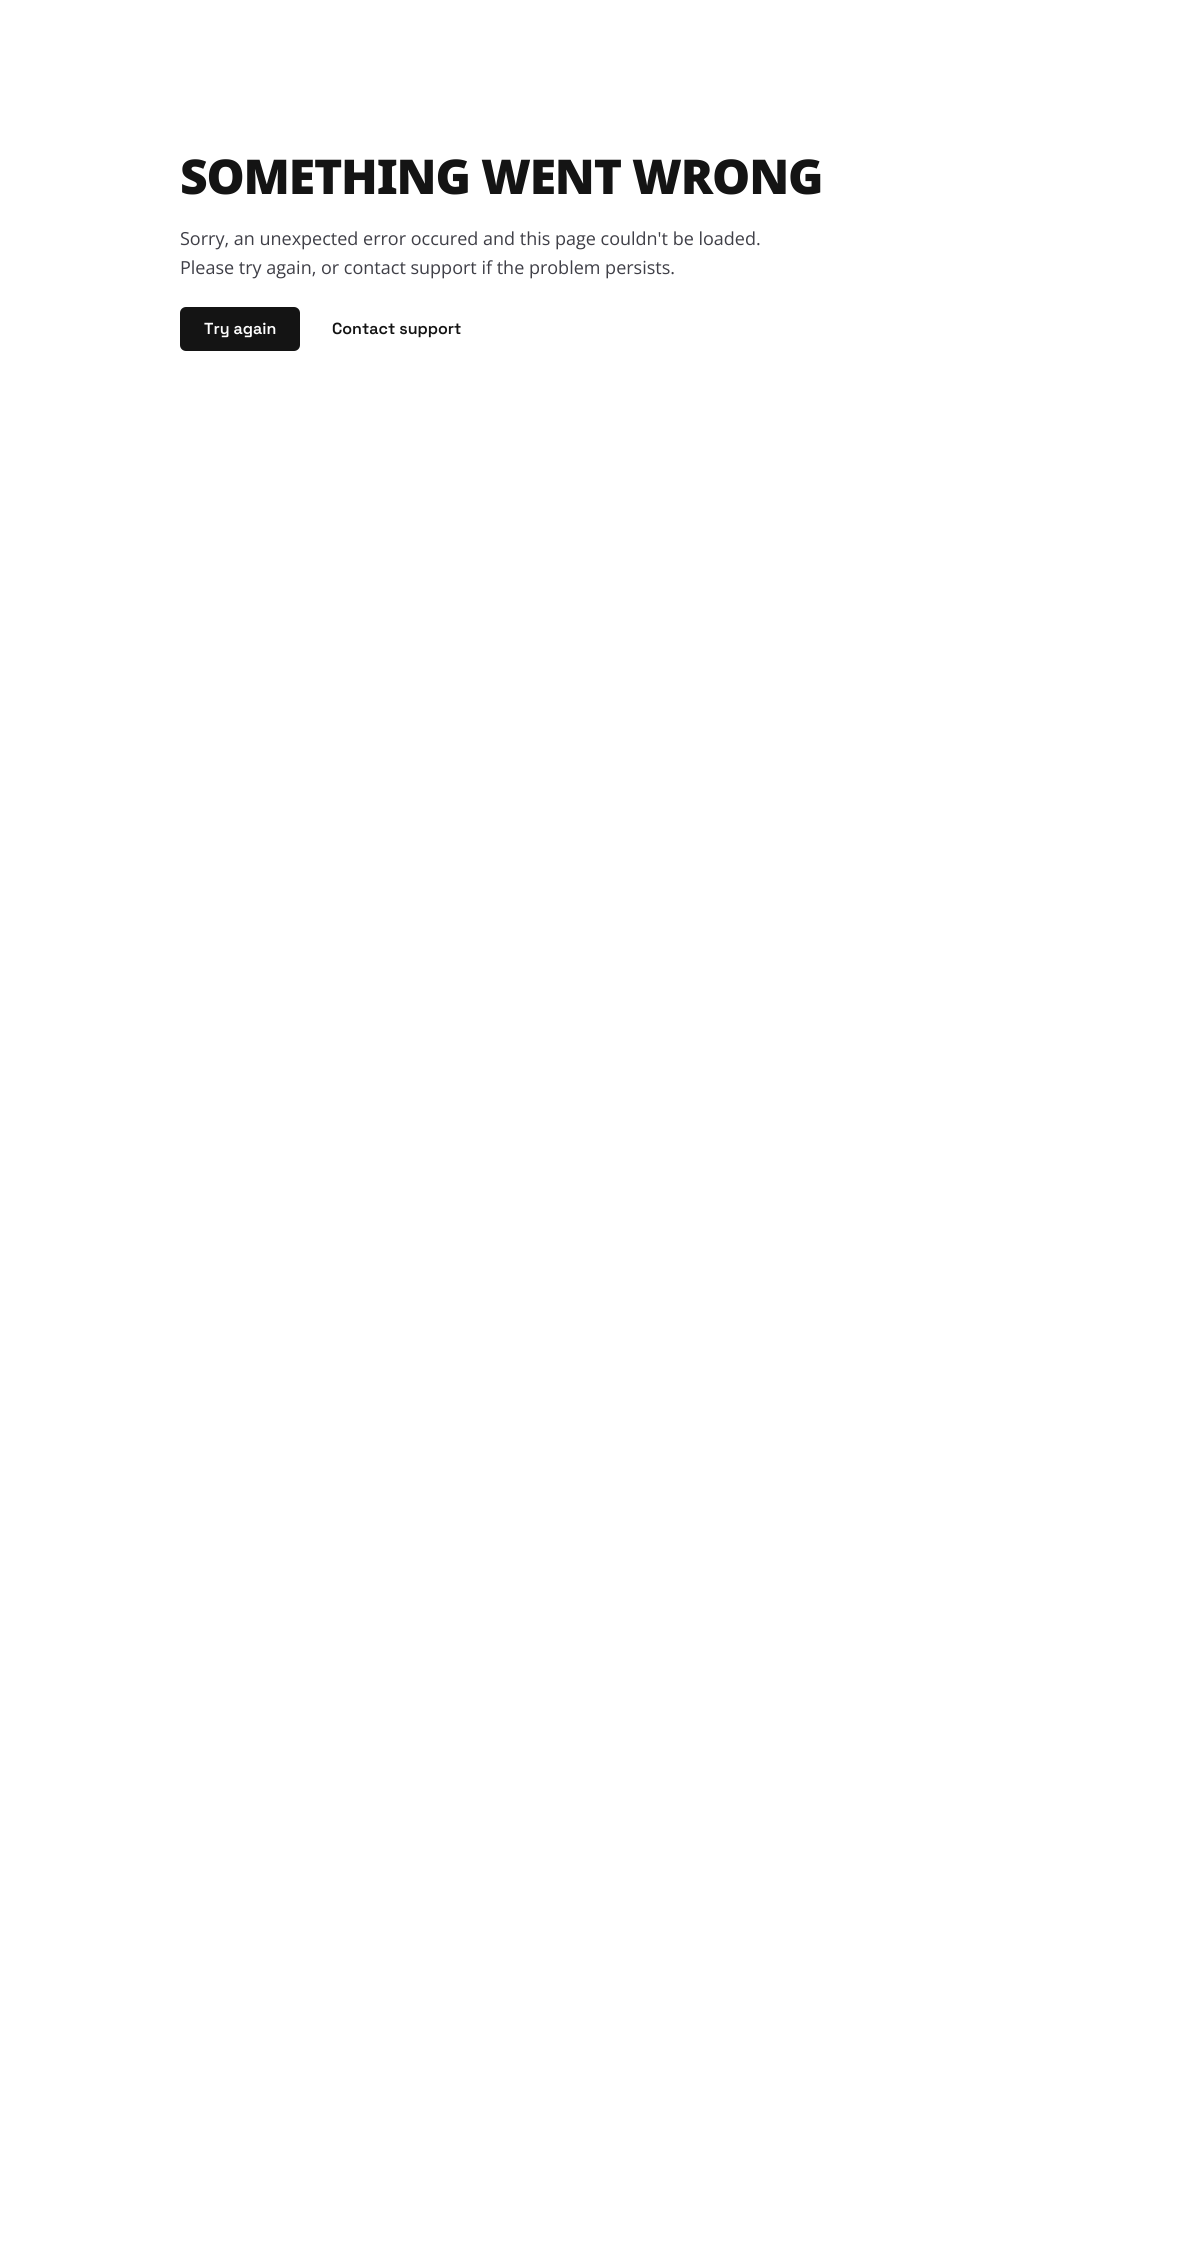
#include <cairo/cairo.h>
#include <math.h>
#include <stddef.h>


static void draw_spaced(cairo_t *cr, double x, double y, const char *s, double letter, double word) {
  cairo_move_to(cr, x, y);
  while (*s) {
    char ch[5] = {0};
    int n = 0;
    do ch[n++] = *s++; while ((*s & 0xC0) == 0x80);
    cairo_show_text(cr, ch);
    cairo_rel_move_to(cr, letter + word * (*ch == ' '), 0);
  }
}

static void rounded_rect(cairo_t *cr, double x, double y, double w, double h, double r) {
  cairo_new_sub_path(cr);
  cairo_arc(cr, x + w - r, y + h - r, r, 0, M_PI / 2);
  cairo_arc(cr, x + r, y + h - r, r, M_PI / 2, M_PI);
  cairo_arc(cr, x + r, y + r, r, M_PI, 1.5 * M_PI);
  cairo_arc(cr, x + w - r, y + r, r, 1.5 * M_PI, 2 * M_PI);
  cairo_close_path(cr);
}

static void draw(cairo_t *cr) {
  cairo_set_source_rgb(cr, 1, 1, 1);
  cairo_paint(cr);
  cairo_set_source_rgb(cr, 20 / 255.0, 20 / 255.0, 20 / 255.0);
  rounded_rect(cr, 180, 307, 120, 44, 6);
  cairo_fill(cr);
  cairo_select_font_face(cr, "Noto Sans Black", CAIRO_FONT_SLANT_NORMAL, CAIRO_FONT_WEIGHT_NORMAL);
  cairo_set_font_size(cr, 48);
  draw_spaced(cr, 180, 194, "SOMETHING WENT WRONG", -1.2, 0);
  cairo_select_font_face(cr, "Open Sans", CAIRO_FONT_SLANT_NORMAL, CAIRO_FONT_WEIGHT_NORMAL);
  cairo_set_font_size(cr, 18);
  cairo_set_source_rgb(cr, 63 / 255.0, 63 / 255.0, 71 / 255.0);
  cairo_move_to(cr, 180, 245);
  cairo_show_text(cr, "Sorry, an unexpected error occured and this page couldn't be loaded.");
  cairo_move_to(cr, 180, 274);
  cairo_show_text(cr, "Please try again, or contact support if the problem persists.");
  cairo_select_font_face(cr, "Space Grotesk SemiBold", CAIRO_FONT_SLANT_NORMAL, CAIRO_FONT_WEIGHT_NORMAL);
  cairo_set_font_size(cr, 16);
  cairo_set_source_rgb(cr, 1, 1, 1);
  cairo_move_to(cr, 204, 334);
  cairo_show_text(cr, "Try again");
  cairo_set_source_rgb(cr, 20 / 255.0, 20 / 255.0, 20 / 255.0);
  cairo_move_to(cr, 332, 334);
  cairo_show_text(cr, "Contact support");
}

int main(void) {
  cairo_surface_t *surface = cairo_image_surface_create(CAIRO_FORMAT_RGB24, 1191, 2244);
  cairo_t *cr = cairo_create(surface);
  cairo_font_options_t *options = cairo_font_options_create();
  cairo_font_options_set_hint_metrics(options, CAIRO_HINT_METRICS_OFF);
  cairo_font_options_set_hint_style(options, CAIRO_HINT_STYLE_NONE);
  cairo_set_font_options(cr, options);
  cairo_set_miter_limit(cr, 4);
  draw(cr);
  cairo_surface_write_to_png(surface, "out.png");
  cairo_font_options_destroy(options);
  cairo_destroy(cr);
  cairo_surface_destroy(surface);
  return 0;
}
